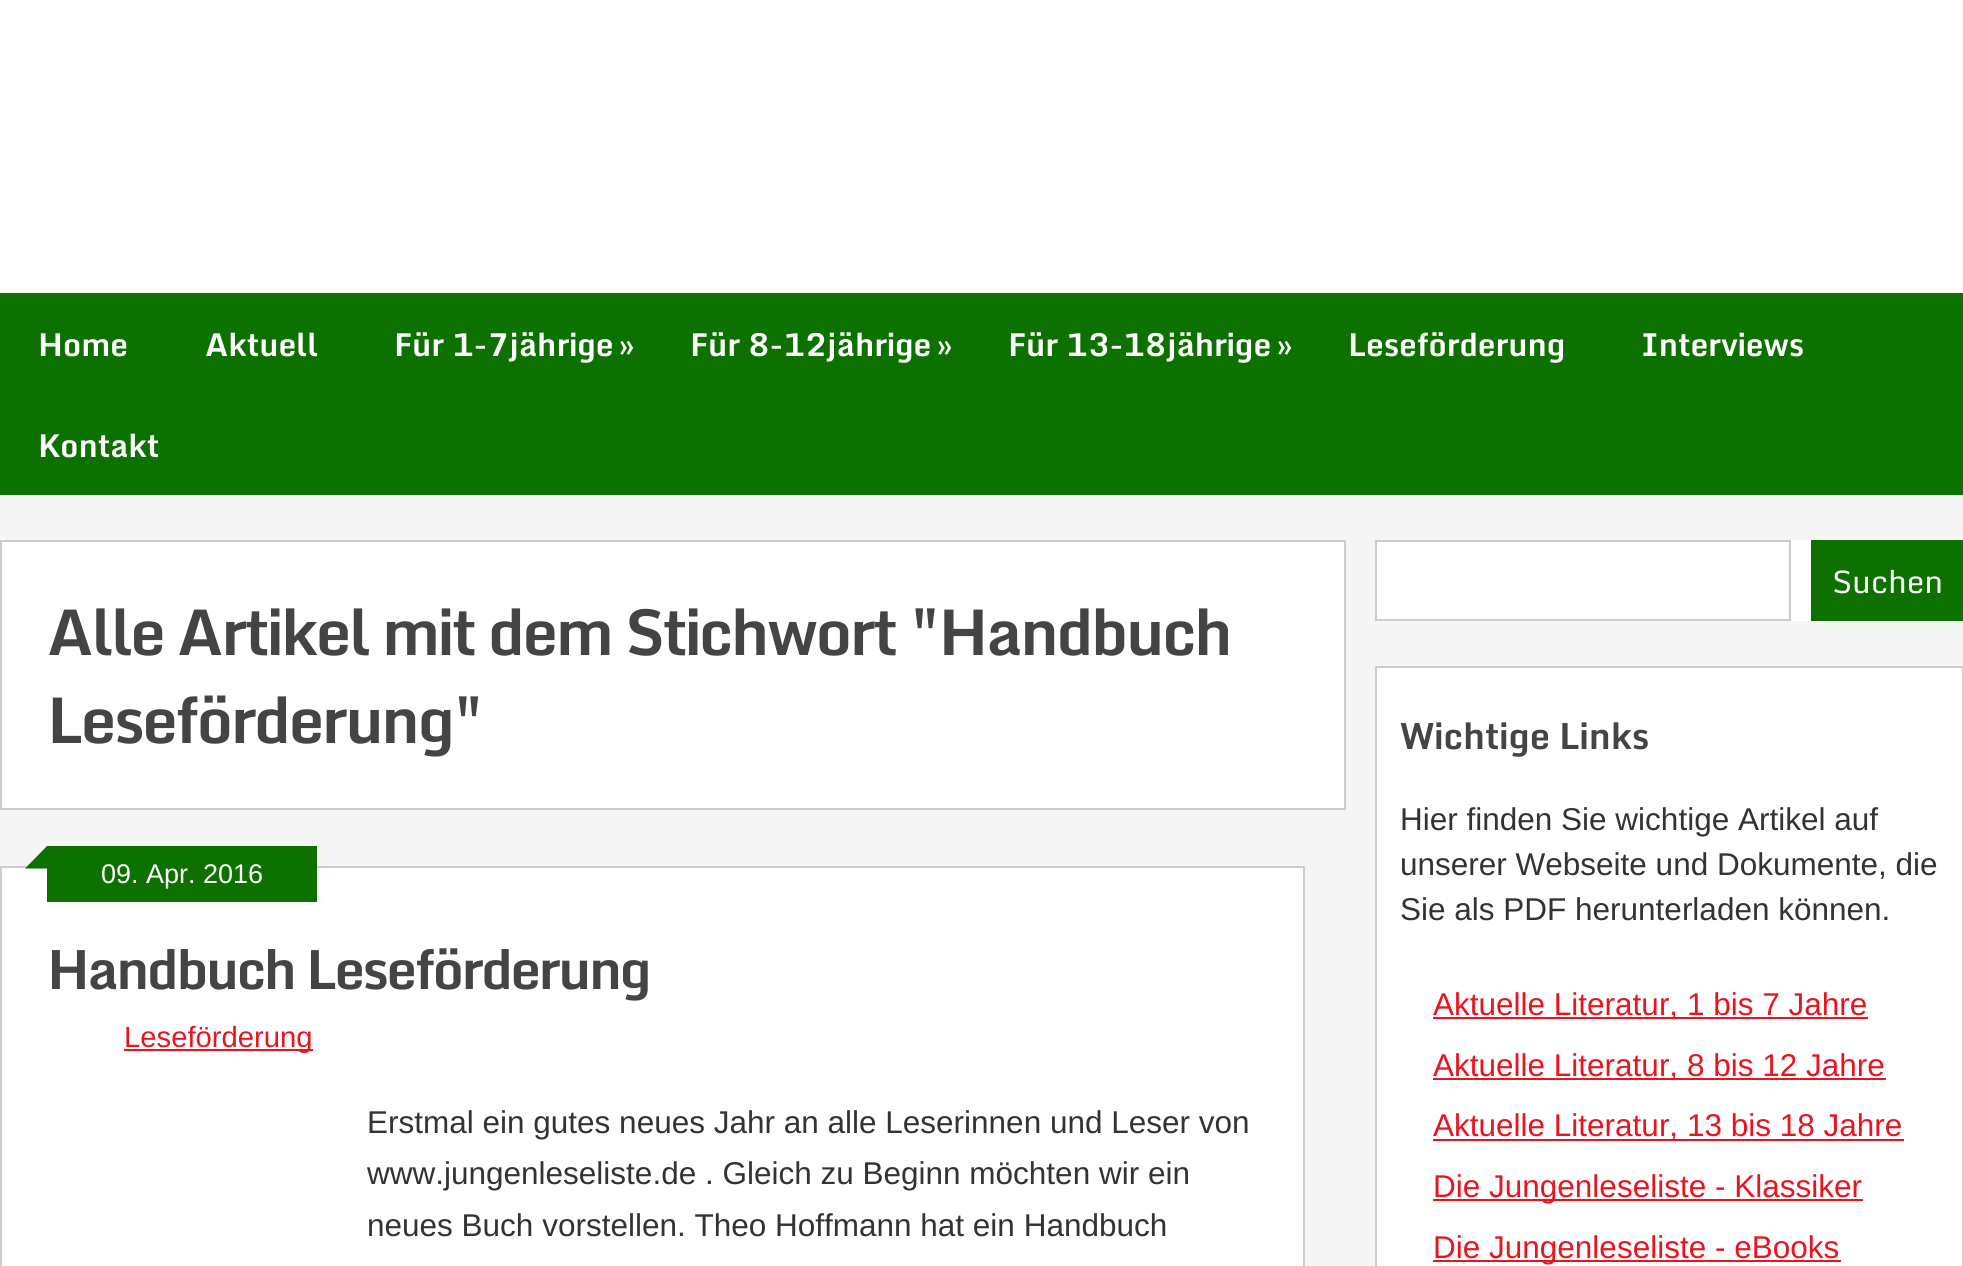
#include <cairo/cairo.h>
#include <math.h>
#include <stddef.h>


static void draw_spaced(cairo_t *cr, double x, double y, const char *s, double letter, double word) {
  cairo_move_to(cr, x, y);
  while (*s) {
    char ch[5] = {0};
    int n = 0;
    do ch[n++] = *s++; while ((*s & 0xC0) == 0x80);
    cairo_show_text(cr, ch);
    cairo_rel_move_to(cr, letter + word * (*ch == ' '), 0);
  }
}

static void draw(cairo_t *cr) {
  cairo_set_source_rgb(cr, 245 / 255.0, 245 / 255.0, 245 / 255.0);
  cairo_paint(cr);
  cairo_set_source_rgb(cr, 1, 1, 1);
  cairo_rectangle(cr, 0, 0, 1963, 293);
  cairo_fill(cr);
  cairo_set_source_rgb(cr, 13 / 255.0, 113 / 255.0, 0);
  cairo_rectangle(cr, 0, 293, 1963, 202);
  cairo_fill(cr);
  cairo_set_source_rgb(cr, 1, 1, 1);
  cairo_rectangle(cr, 1, 541, 1344, 268);
  cairo_fill_preserve(cr);
  cairo_set_source_rgb(cr, 204 / 255.0, 204 / 255.0, 204 / 255.0);
  cairo_stroke(cr);
  cairo_set_source_rgb(cr, 1, 1, 1);
  cairo_rectangle(cr, 1, 867, 1303, 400);
  cairo_fill_preserve(cr);
  cairo_set_source_rgb(cr, 205 / 255.0, 205 / 255.0, 205 / 255.0);
  cairo_stroke(cr);
  cairo_set_source_rgb(cr, 13 / 255.0, 113 / 255.0, 0);
  cairo_rectangle(cr, 47, 846, 270, 56);
  cairo_fill(cr);
  cairo_new_path(cr);
  cairo_move_to(cr, 47, 868.5);
  cairo_line_to(cr, 25, 868.5);
  cairo_line_to(cr, 47, 846);
  cairo_close_path(cr);
  cairo_fill(cr);
  cairo_set_source_rgb(cr, 234 / 255.0, 20 / 255.0, 31 / 255.0);
  cairo_rectangle(cr, 124, 1049, 189, 2);
  cairo_fill(cr);
  cairo_set_source_rgb(cr, 1, 1, 1);
  cairo_rectangle(cr, 1377, 540, 434, 81);
  cairo_fill(cr);
  cairo_rectangle(cr, 1376, 541, 414, 79);
  cairo_set_source_rgb(cr, 204 / 255.0, 204 / 255.0, 204 / 255.0);
  cairo_stroke(cr);
  cairo_set_source_rgb(cr, 13 / 255.0, 113 / 255.0, 0);
  cairo_rectangle(cr, 1811, 540, 152, 81);
  cairo_fill(cr);
  cairo_set_source_rgb(cr, 1, 1, 1);
  cairo_rectangle(cr, 1376, 667, 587, 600);
  cairo_fill_preserve(cr);
  cairo_set_source_rgb(cr, 205 / 255.0, 205 / 255.0, 205 / 255.0);
  cairo_stroke(cr);
  cairo_set_source_rgb(cr, 234 / 255.0, 20 / 255.0, 31 / 255.0);
  cairo_rectangle(cr, 1433, 1017, 435, 2);
  cairo_fill(cr);
  cairo_rectangle(cr, 1433, 1078, 453, 2);
  cairo_fill(cr);
  cairo_rectangle(cr, 1433, 1139, 471, 2);
  cairo_fill(cr);
  cairo_rectangle(cr, 1433, 1199, 430, 2);
  cairo_fill(cr);
  cairo_rectangle(cr, 1433, 1260, 408, 2);
  cairo_fill(cr);
  cairo_select_font_face(cr, "Monda", CAIRO_FONT_SLANT_NORMAL, CAIRO_FONT_WEIGHT_BOLD);
  cairo_set_font_size(cr, 31.5);
  cairo_set_source_rgb(cr, 1, 1, 1);
  cairo_move_to(cr, 38, 356);
  cairo_show_text(cr, "Home");
  cairo_move_to(cr, 205, 356);
  cairo_show_text(cr, "Aktuell");
  cairo_move_to(cr, 394, 356);
  cairo_show_text(cr, "Für 1-7jährige");
  cairo_move_to(cr, 618, 356);
  cairo_show_text(cr, "»");
  cairo_move_to(cr, 690, 356);
  cairo_show_text(cr, "Für 8-12jährige");
  cairo_move_to(cr, 936, 356);
  cairo_show_text(cr, "»");
  cairo_move_to(cr, 1008, 356);
  cairo_show_text(cr, "Für 13-18jährige");
  cairo_move_to(cr, 1276, 356);
  cairo_show_text(cr, "»");
  cairo_move_to(cr, 1348, 356);
  cairo_show_text(cr, "Leseförderung");
  cairo_move_to(cr, 1641, 356);
  cairo_show_text(cr, "Interviews");
  cairo_move_to(cr, 38, 457);
  cairo_show_text(cr, "Kontakt");
  cairo_set_font_size(cr, 63);
  cairo_set_source_rgb(cr, 68 / 255.0, 68 / 255.0, 68 / 255.0);
  draw_spaced(cr, 47, 655, "Alle Artikel mit dem Stichwort \"Handbuch", -2.25, 0);
  draw_spaced(cr, 47, 743, "Leseförderung\"", -2.25, 0);
  cairo_select_font_face(cr, "Liberation Sans", CAIRO_FONT_SLANT_NORMAL, CAIRO_FONT_WEIGHT_NORMAL);
  cairo_set_font_size(cr, 27);
  cairo_set_source_rgb(cr, 1, 1, 1);
  cairo_move_to(cr, 101, 883);
  cairo_show_text(cr, "09. Apr. 2016");
  cairo_select_font_face(cr, "Monda", CAIRO_FONT_SLANT_NORMAL, CAIRO_FONT_WEIGHT_BOLD);
  cairo_set_font_size(cr, 54);
  cairo_set_source_rgb(cr, 68 / 255.0, 68 / 255.0, 68 / 255.0);
  draw_spaced(cr, 47, 989, "Handbuch Leseförderung", -2.25, 0);
  cairo_select_font_face(cr, "Liberation Sans", CAIRO_FONT_SLANT_NORMAL, CAIRO_FONT_WEIGHT_NORMAL);
  cairo_set_font_size(cr, 29.25);
  cairo_set_source_rgb(cr, 234 / 255.0, 20 / 255.0, 31 / 255.0);
  cairo_move_to(cr, 124, 1047);
  cairo_show_text(cr, "Leseförderung");
  cairo_set_font_size(cr, 31.5);
  cairo_set_source_rgb(cr, 51 / 255.0, 51 / 255.0, 51 / 255.0);
  cairo_move_to(cr, 367, 1133);
  cairo_show_text(cr, "Erstmal ein gutes neues Jahr an alle Leserinnen und Leser von");
  cairo_move_to(cr, 367, 1184);
  cairo_show_text(cr, "www.jungenleseliste.de . Gleich zu Beginn möchten wir ein");
  cairo_move_to(cr, 367, 1236);
  cairo_show_text(cr, "neues Buch vorstellen. Theo Hoffmann hat ein Handbuch");
  cairo_select_font_face(cr, "Monda", CAIRO_FONT_SLANT_NORMAL, CAIRO_FONT_WEIGHT_NORMAL);
  cairo_set_source_rgb(cr, 1, 1, 1);
  cairo_move_to(cr, 1832, 593);
  cairo_show_text(cr, "Suchen");
  cairo_select_font_face(cr, "Monda", CAIRO_FONT_SLANT_NORMAL, CAIRO_FONT_WEIGHT_BOLD);
  cairo_set_font_size(cr, 36);
  cairo_set_source_rgb(cr, 68 / 255.0, 68 / 255.0, 68 / 255.0);
  cairo_move_to(cr, 1400, 749);
  cairo_show_text(cr, "Wichtige Links");
  cairo_select_font_face(cr, "Liberation Sans", CAIRO_FONT_SLANT_NORMAL, CAIRO_FONT_WEIGHT_NORMAL);
  cairo_set_font_size(cr, 31.5);
  cairo_set_source_rgb(cr, 51 / 255.0, 51 / 255.0, 51 / 255.0);
  cairo_move_to(cr, 1400, 830);
  cairo_show_text(cr, "Hier finden Sie wichtige Artikel auf");
  cairo_move_to(cr, 1400, 875);
  cairo_show_text(cr, "unserer Webseite und Dokumente, die");
  cairo_move_to(cr, 1400, 920);
  cairo_show_text(cr, "Sie als PDF herunterladen können.");
  cairo_set_source_rgb(cr, 234 / 255.0, 20 / 255.0, 31 / 255.0);
  cairo_move_to(cr, 1433, 1015);
  cairo_show_text(cr, "Aktuelle Literatur, 1 bis 7 Jahre");
  cairo_move_to(cr, 1433, 1076);
  cairo_show_text(cr, "Aktuelle Literatur, 8 bis 12 Jahre");
  cairo_move_to(cr, 1433, 1136);
  cairo_show_text(cr, "Aktuelle Literatur, 13 bis 18 Jahre");
  cairo_move_to(cr, 1433, 1197);
  cairo_show_text(cr, "Die Jungenleseliste - Klassiker");
  cairo_move_to(cr, 1433, 1258);
  cairo_show_text(cr, "Die Jungenleseliste - eBooks");
}

int main(void) {
  cairo_surface_t *surface = cairo_image_surface_create(CAIRO_FORMAT_RGB24, 1963, 1266);
  cairo_t *cr = cairo_create(surface);
  cairo_font_options_t *options = cairo_font_options_create();
  cairo_font_options_set_hint_metrics(options, CAIRO_HINT_METRICS_OFF);
  cairo_font_options_set_hint_style(options, CAIRO_HINT_STYLE_NONE);
  cairo_set_font_options(cr, options);
  cairo_set_miter_limit(cr, 4);
  draw(cr);
  cairo_surface_write_to_png(surface, "out.png");
  cairo_font_options_destroy(options);
  cairo_destroy(cr);
  cairo_surface_destroy(surface);
  return 0;
}
